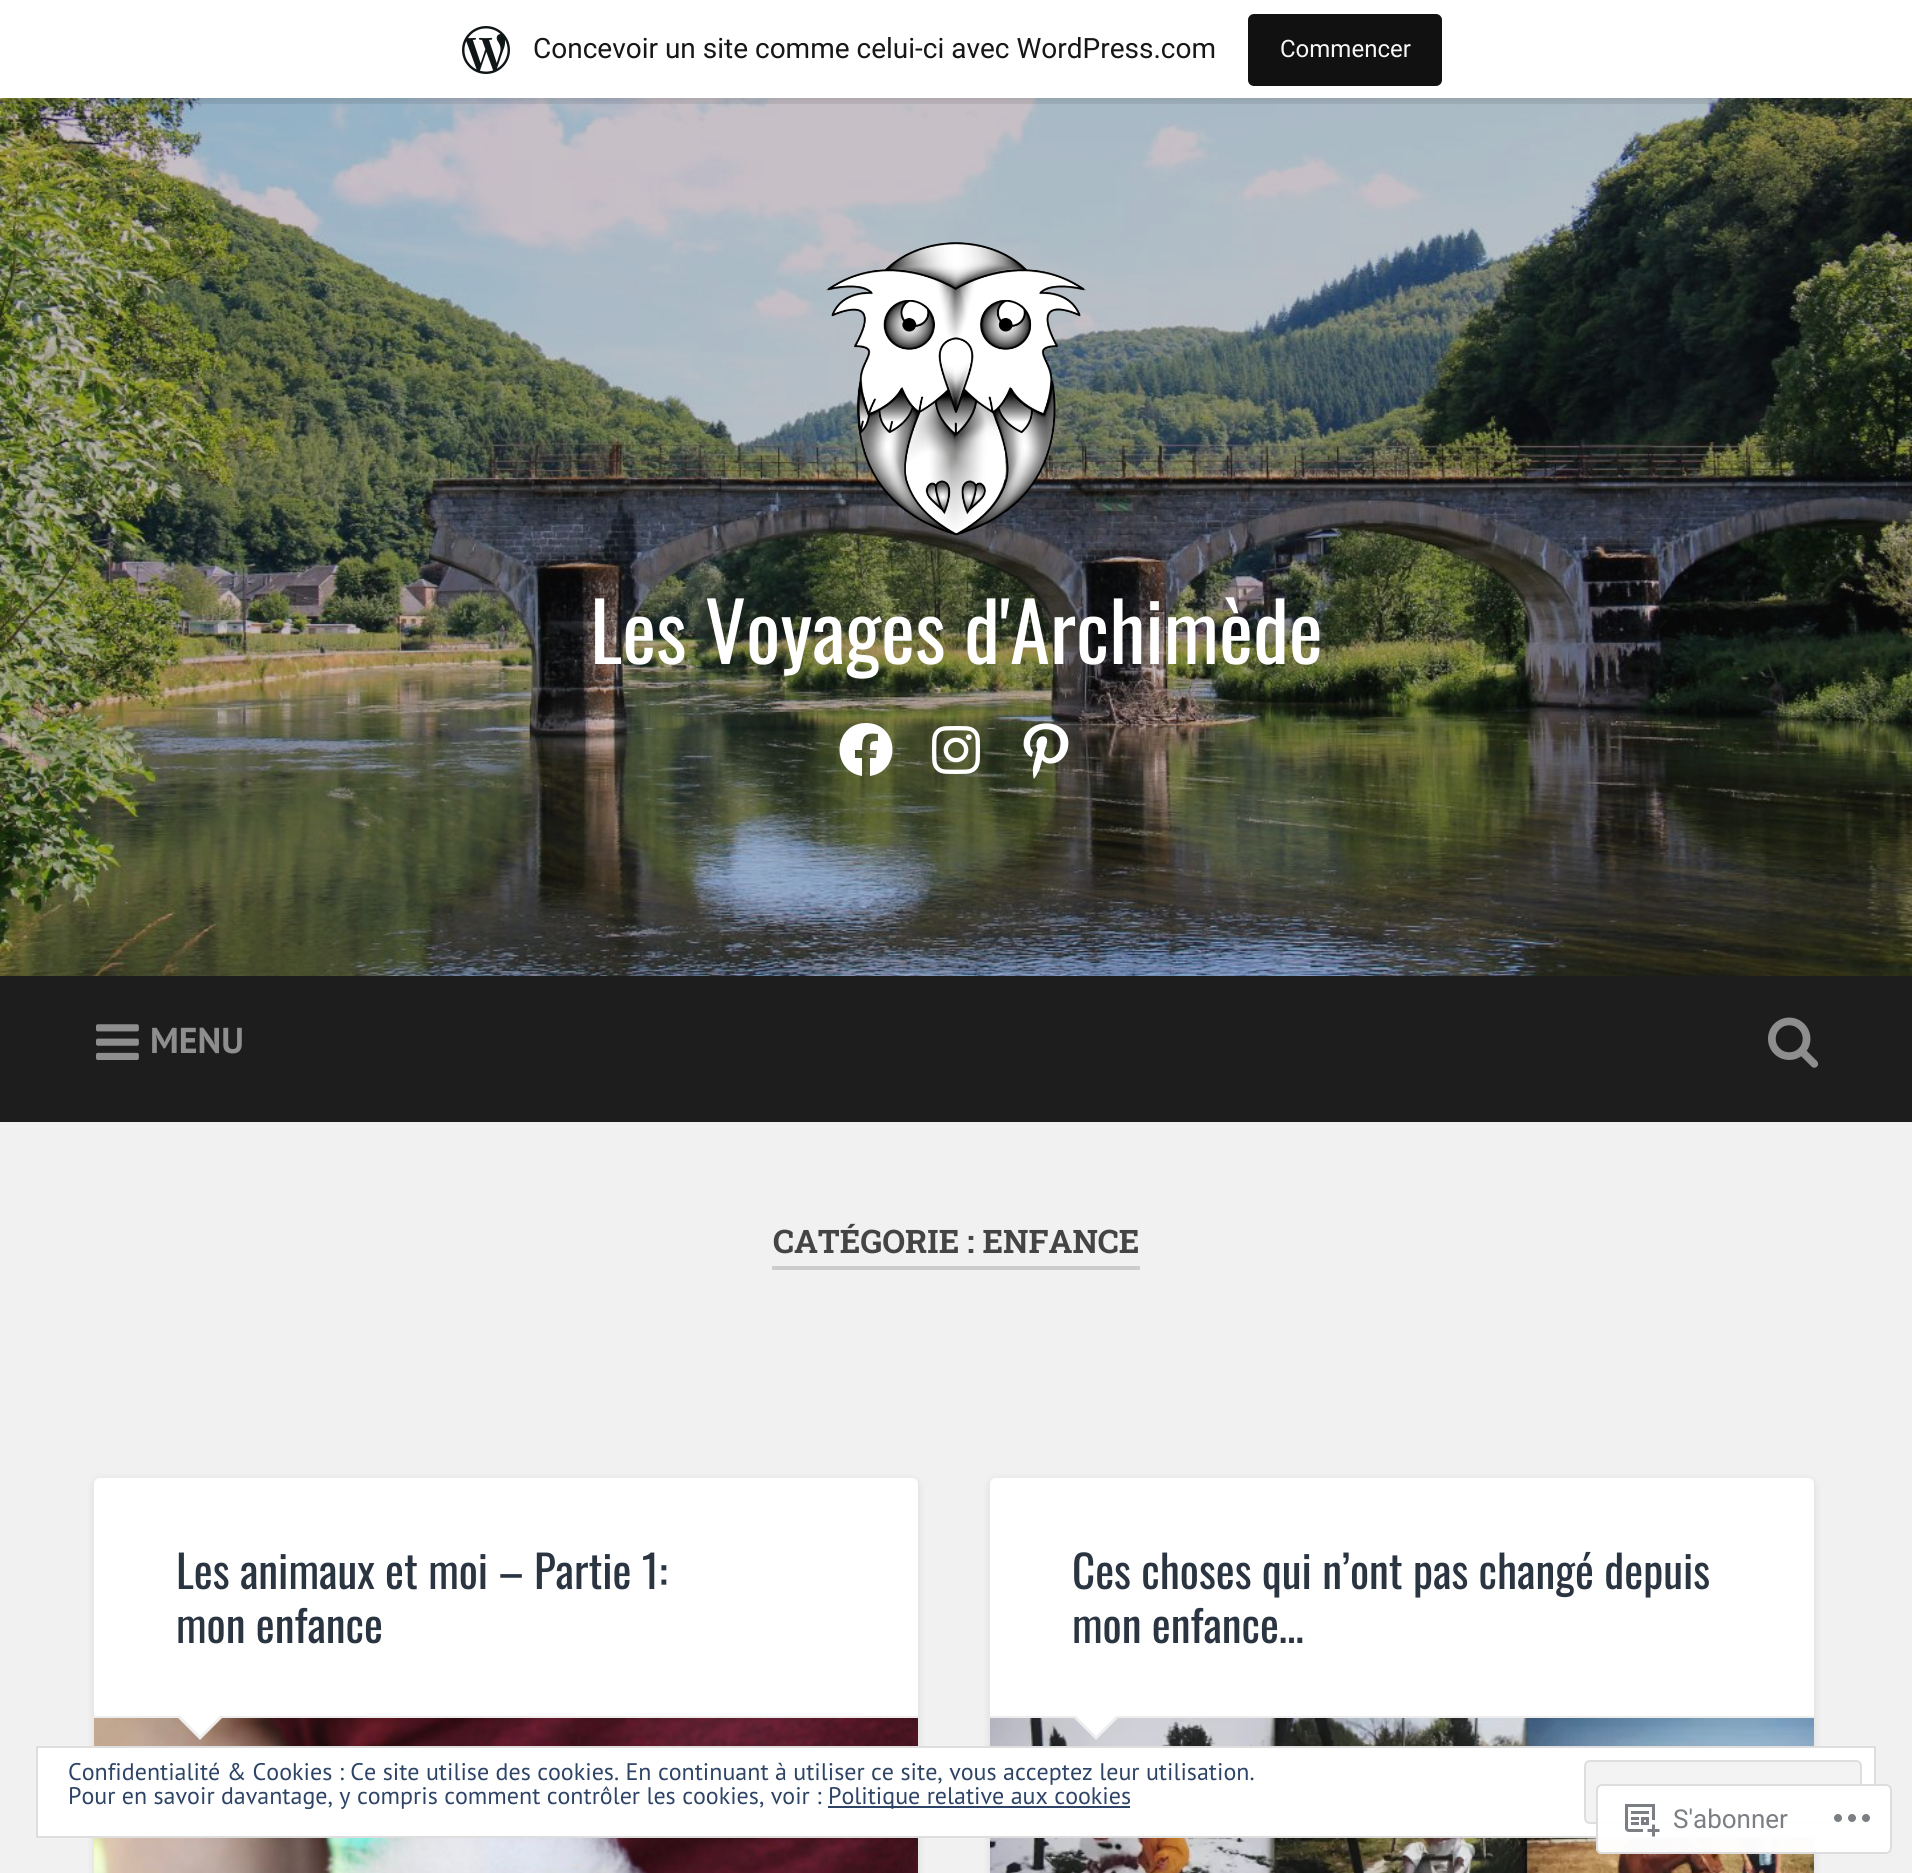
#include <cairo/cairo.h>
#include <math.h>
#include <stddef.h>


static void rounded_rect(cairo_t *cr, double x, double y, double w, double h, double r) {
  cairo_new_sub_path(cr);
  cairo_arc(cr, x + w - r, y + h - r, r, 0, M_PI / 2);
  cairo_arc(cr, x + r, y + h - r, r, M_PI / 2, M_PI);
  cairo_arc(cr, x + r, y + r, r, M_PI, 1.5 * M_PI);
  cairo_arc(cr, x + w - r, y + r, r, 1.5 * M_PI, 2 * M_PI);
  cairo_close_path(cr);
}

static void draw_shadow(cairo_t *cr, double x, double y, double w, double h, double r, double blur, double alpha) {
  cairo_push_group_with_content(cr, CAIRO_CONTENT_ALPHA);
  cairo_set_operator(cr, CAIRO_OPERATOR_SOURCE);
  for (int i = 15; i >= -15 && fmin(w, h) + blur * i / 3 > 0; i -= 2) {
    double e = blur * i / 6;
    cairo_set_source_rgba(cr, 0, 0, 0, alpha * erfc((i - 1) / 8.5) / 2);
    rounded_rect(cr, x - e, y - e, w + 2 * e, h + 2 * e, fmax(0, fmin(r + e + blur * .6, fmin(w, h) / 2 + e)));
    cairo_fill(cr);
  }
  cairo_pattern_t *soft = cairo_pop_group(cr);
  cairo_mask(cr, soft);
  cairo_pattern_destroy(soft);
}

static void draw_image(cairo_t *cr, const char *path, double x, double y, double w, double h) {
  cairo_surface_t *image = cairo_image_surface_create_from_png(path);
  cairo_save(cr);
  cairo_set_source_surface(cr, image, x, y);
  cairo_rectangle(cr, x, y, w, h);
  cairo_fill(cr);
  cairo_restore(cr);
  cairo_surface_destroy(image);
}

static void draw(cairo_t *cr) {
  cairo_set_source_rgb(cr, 241 / 255.0, 241 / 255.0, 241 / 255.0);
  cairo_paint(cr);
  draw_image(cr, "images/2.png", 0, 98, 1912, 878);
  cairo_set_source_rgb(cr, 0, 0, 0);
  draw_shadow(cr, 0, 2, 1912, 98, 0, 2, 0.05);
  cairo_set_source_rgba(cr, 0, 0, 0, 0.08);
  cairo_new_path(cr);
  cairo_move_to(cr, 2, 98);
  cairo_line_to(cr, 2, 104);
  cairo_line_to(cr, 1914, 104);
  cairo_line_to(cr, 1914, 6);
  cairo_line_to(cr, 1912, 6);
  cairo_line_to(cr, 1912, 98);
  cairo_close_path(cr);
  cairo_fill(cr);
  cairo_set_source_rgb(cr, 1, 1, 1);
  cairo_rectangle(cr, 0, 0, 1912, 98);
  cairo_fill(cr);
  draw_image(cr, "images/1.png", 462, 26, 48, 48);
  cairo_set_source_rgb(cr, 17 / 255.0, 17 / 255.0, 17 / 255.0);
  rounded_rect(cr, 1248, 14, 194, 72, 6);
  cairo_fill(cr);
  draw_image(cr, "images/3.png", 826, 242, 260, 294);
  cairo_set_source_rgb(cr, 1, 1, 1);
  cairo_new_path(cr);
  cairo_move_to(cr, 866, 723);
  cairo_curve_to(cr, 833, 723, 830, 771, 862, 776);
  cairo_line_to(cr, 862, 758);
  cairo_line_to(cr, 855, 758);
  cairo_line_to(cr, 855, 750);
  cairo_line_to(cr, 862, 750);
  cairo_curve_to(cr, 862, 737, 864, 732, 878, 734);
  cairo_line_to(cr, 878, 741);
  cairo_curve_to(cr, 870, 741, 870, 742, 870, 750);
  cairo_line_to(cr, 877, 750);
  cairo_line_to(cr, 876, 758);
  cairo_line_to(cr, 870, 758);
  cairo_line_to(cr, 870, 776);
  cairo_curve_to(cr, 902, 771, 899, 723, 866, 723);
  cairo_close_path(cr);
  cairo_fill(cr);
  draw_image(cr, "images/4.png", 932, 726, 48, 48);
  draw_image(cr, "images/5.png", 1023, 723, 46, 56);
  cairo_set_source_rgb(cr, 29 / 255.0, 29 / 255.0, 29 / 255.0);
  cairo_rectangle(cr, 0, 976, 1912, 146);
  cairo_fill(cr);
  draw_image(cr, "images/6.png", 96, 1024, 43, 36);
  draw_image(cr, "images/7.png", 1768, 1017, 51, 51);
  cairo_set_source_rgb(cr, 204 / 255.0, 204 / 255.0, 204 / 255.0);
  cairo_rectangle(cr, 772, 1266, 368, 4);
  cairo_fill(cr);
  cairo_set_source_rgb(cr, 0, 0, 0);
  draw_shadow(cr, 94, 1480, 824, 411, 6, 4, 0.1);
  cairo_set_source_rgb(cr, 1, 1, 1);
  rounded_rect(cr, 94, 1478, 824, 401, 6);
  cairo_fill(cr);
  cairo_set_source_rgb(cr, 238 / 255.0, 238 / 255.0, 238 / 255.0);
  cairo_rectangle(cr, 94, 1716, 824, 2);
  cairo_fill(cr);
  draw_image(cr, "images/8.png", 94, 1718, 824, 155);
  cairo_new_path(cr);
  cairo_move_to(cr, 176, 1716);
  cairo_line_to(cr, 224, 1716);
  cairo_line_to(cr, 200, 1740);
  cairo_close_path(cr);
  cairo_fill(cr);
  cairo_set_source_rgb(cr, 1, 1, 1);
  cairo_new_path(cr);
  cairo_move_to(cr, 178, 1714);
  cairo_line_to(cr, 222, 1714);
  cairo_line_to(cr, 200, 1736);
  cairo_close_path(cr);
  cairo_fill(cr);
  cairo_set_source_rgb(cr, 0, 0, 0);
  draw_shadow(cr, 990, 1480, 824, 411, 6, 4, 0.1);
  cairo_set_source_rgb(cr, 1, 1, 1);
  rounded_rect(cr, 990, 1478, 824, 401, 6);
  cairo_fill(cr);
  cairo_set_source_rgb(cr, 238 / 255.0, 238 / 255.0, 238 / 255.0);
  cairo_rectangle(cr, 990, 1716, 824, 2);
  cairo_fill(cr);
  draw_image(cr, "images/9.png", 990, 1718, 824, 155);
  cairo_new_path(cr);
  cairo_move_to(cr, 1072, 1716);
  cairo_line_to(cr, 1120, 1716);
  cairo_line_to(cr, 1096, 1740);
  cairo_close_path(cr);
  cairo_fill(cr);
  cairo_set_source_rgb(cr, 1, 1, 1);
  cairo_new_path(cr);
  cairo_move_to(cr, 1074, 1714);
  cairo_line_to(cr, 1118, 1714);
  cairo_line_to(cr, 1096, 1736);
  cairo_close_path(cr);
  cairo_fill(cr);
  cairo_rectangle(cr, 37, 1747, 1838, 90);
  cairo_fill_preserve(cr);
  cairo_set_source_rgb(cr, 222 / 255.0, 222 / 255.0, 222 / 255.0);
  cairo_stroke(cr);
  cairo_set_source_rgb(cr, 243 / 255.0, 243 / 255.0, 243 / 255.0);
  rounded_rect(cr, 1585, 1761, 276, 62, 5);
  cairo_fill_preserve(cr);
  cairo_set_source_rgb(cr, 222 / 255.0, 222 / 255.0, 222 / 255.0);
  cairo_stroke(cr);
  cairo_set_source_rgb(cr, 46 / 255.0, 68 / 255.0, 103 / 255.0);
  cairo_rectangle(cr, 828, 1806, 302, 2);
  cairo_fill(cr);
  cairo_set_source_rgba(cr, 1, 1, 1, 0.98);
  rounded_rect(cr, 1596, 1784, 296, 70, 6);
  cairo_fill(cr);
  rounded_rect(cr, 1597, 1785, 294, 68, 5);
  cairo_set_source_rgba(cr, 220 / 255.0, 220 / 255.0, 222 / 255.0, 0.98);
  cairo_stroke(cr);
  draw_image(cr, "images/10.png", 1625, 1804, 35, 33);
  draw_image(cr, "images/11.png", 1834, 1814, 36, 8);
  cairo_select_font_face(cr, "Roboto", CAIRO_FONT_SLANT_NORMAL, CAIRO_FONT_WEIGHT_NORMAL);
  cairo_set_font_size(cr, 28);
  cairo_set_source_rgb(cr, 23 / 255.0, 23 / 255.0, 23 / 255.0);
  cairo_move_to(cr, 533, 58);
  cairo_show_text(cr, "Concevoir un site comme celui-ci avec WordPress.com");
  cairo_set_font_size(cr, 24);
  cairo_set_source_rgb(cr, 246 / 255.0, 247 / 255.0, 247 / 255.0);
  cairo_move_to(cr, 1280, 57);
  cairo_show_text(cr, "Commencer");
  cairo_select_font_face(cr, "Oswald", CAIRO_FONT_SLANT_NORMAL, CAIRO_FONT_WEIGHT_NORMAL);
  cairo_set_font_size(cr, 81);
  cairo_set_source_rgb(cr, 1, 1, 1);
  cairo_move_to(cr, 590, 664);
  cairo_show_text(cr, "Les Voyages d'Archimède");
  cairo_select_font_face(cr, "PT Sans", CAIRO_FONT_SLANT_NORMAL, CAIRO_FONT_WEIGHT_BOLD);
  cairo_set_font_size(cr, 36);
  cairo_set_source_rgb(cr, 142 / 255.0, 142 / 255.0, 142 / 255.0);
  cairo_move_to(cr, 150, 1053);
  cairo_show_text(cr, "MENU");
  cairo_select_font_face(cr, "Roboto Slab", CAIRO_FONT_SLANT_NORMAL, CAIRO_FONT_WEIGHT_BOLD);
  cairo_set_font_size(cr, 32.4);
  cairo_set_source_rgb(cr, 68 / 255.0, 68 / 255.0, 68 / 255.0);
  cairo_move_to(cr, 773, 1253);
  cairo_show_text(cr, "CATÉGORIE : ENFANCE");
  cairo_select_font_face(cr, "Oswald", CAIRO_FONT_SLANT_NORMAL, CAIRO_FONT_WEIGHT_NORMAL);
  cairo_set_font_size(cr, 45);
  cairo_set_source_rgb(cr, 43 / 255.0, 53 / 255.0, 66 / 255.0);
  cairo_move_to(cr, 176, 1589);
  cairo_show_text(cr, "Les animaux et moi – Partie 1:");
  cairo_move_to(cr, 176, 1643);
  cairo_show_text(cr, "mon enfance");
  cairo_move_to(cr, 1072, 1589);
  cairo_show_text(cr, "Ces choses qui n’ont pas changé depuis");
  cairo_move_to(cr, 1072, 1643);
  cairo_show_text(cr, "mon enfance…");
  cairo_select_font_face(cr, "PT Sans", CAIRO_FONT_SLANT_NORMAL, CAIRO_FONT_WEIGHT_NORMAL);
  cairo_set_font_size(cr, 24);
  cairo_set_source_rgb(cr, 46 / 255.0, 68 / 255.0, 103 / 255.0);
  cairo_move_to(cr, 68, 1780);
  cairo_show_text(cr, "Confidentialité & Cookies : Ce site utilise des cookies. En continuant à utiliser ce site, vous acceptez leur utilisation.");
  cairo_move_to(cr, 68, 1804);
  cairo_show_text(cr, "Pour en savoir davantage, y compris comment contrôler les cookies, voir :");
  cairo_move_to(cr, 828, 1804);
  cairo_show_text(cr, "Politique relative aux cookies");
  cairo_select_font_face(cr, "Roboto", CAIRO_FONT_SLANT_NORMAL, CAIRO_FONT_WEIGHT_NORMAL);
  cairo_set_font_size(cr, 26);
  cairo_set_source_rgb(cr, 123 / 255.0, 127 / 255.0, 132 / 255.0);
  cairo_move_to(cr, 1673, 1828);
  cairo_show_text(cr, "S'abonner");
}

int main(void) {
  cairo_surface_t *surface = cairo_image_surface_create(CAIRO_FORMAT_RGB24, 1912, 1873);
  cairo_t *cr = cairo_create(surface);
  cairo_font_options_t *options = cairo_font_options_create();
  cairo_font_options_set_hint_metrics(options, CAIRO_HINT_METRICS_OFF);
  cairo_font_options_set_hint_style(options, CAIRO_HINT_STYLE_NONE);
  cairo_set_font_options(cr, options);
  cairo_set_miter_limit(cr, 4);
  draw(cr);
  cairo_surface_write_to_png(surface, "out.png");
  cairo_font_options_destroy(options);
  cairo_destroy(cr);
  cairo_surface_destroy(surface);
  return 0;
}
